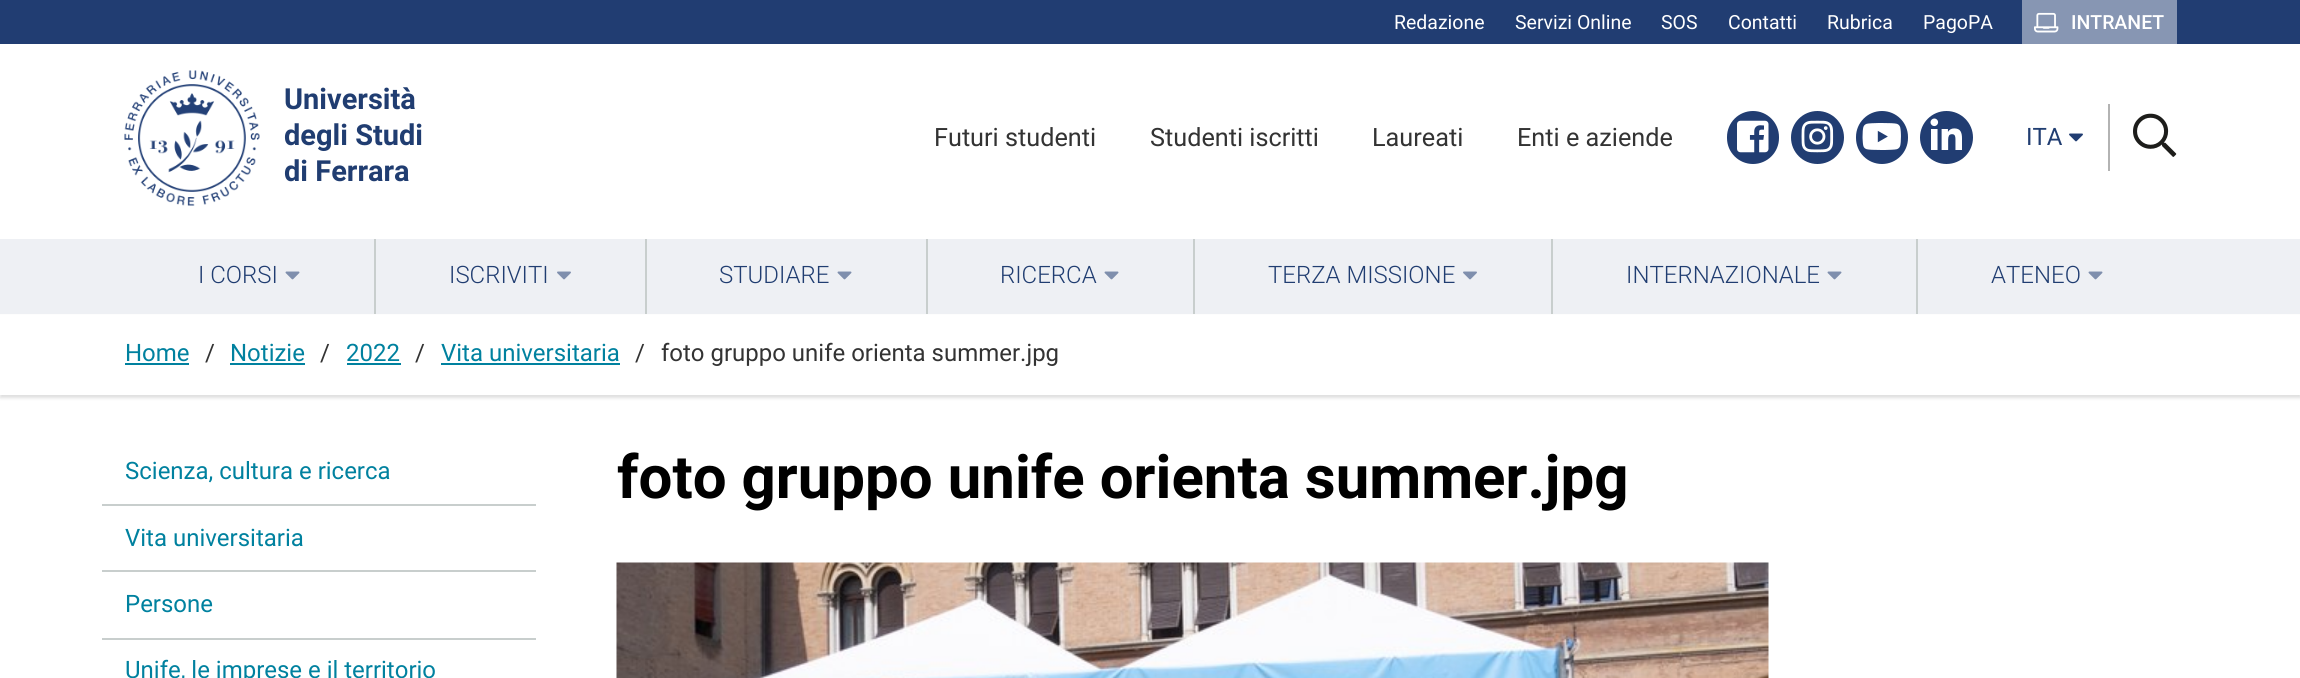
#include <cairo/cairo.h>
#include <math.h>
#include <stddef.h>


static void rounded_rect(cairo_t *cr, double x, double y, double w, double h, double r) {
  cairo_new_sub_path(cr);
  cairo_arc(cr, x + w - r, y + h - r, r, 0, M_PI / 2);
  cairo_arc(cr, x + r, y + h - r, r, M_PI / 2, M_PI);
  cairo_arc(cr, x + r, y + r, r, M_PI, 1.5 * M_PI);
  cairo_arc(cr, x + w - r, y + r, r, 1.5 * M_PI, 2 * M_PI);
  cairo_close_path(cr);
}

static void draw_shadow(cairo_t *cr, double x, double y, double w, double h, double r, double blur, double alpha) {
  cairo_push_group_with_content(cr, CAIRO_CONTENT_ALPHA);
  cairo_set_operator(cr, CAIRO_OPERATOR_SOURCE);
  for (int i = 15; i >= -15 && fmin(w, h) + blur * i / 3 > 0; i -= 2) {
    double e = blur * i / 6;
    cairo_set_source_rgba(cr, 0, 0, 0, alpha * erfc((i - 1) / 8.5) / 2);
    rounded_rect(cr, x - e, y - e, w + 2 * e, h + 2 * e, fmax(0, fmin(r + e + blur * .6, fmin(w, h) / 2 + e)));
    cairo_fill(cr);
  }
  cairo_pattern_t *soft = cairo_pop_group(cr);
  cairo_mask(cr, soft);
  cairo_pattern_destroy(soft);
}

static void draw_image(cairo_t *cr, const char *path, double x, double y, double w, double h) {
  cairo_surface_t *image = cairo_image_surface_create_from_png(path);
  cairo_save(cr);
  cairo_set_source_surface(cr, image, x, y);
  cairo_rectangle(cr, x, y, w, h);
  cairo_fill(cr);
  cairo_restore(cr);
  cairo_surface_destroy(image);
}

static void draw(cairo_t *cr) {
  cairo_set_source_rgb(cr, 1, 1, 1);
  cairo_paint(cr);
  cairo_set_source_rgb(cr, 33 / 255.0, 61 / 255.0, 114 / 255.0);
  cairo_rectangle(cr, 0, 0, 2300, 44);
  cairo_fill(cr);
  cairo_set_source_rgb(cr, 135 / 255.0, 150 / 255.0, 179 / 255.0);
  cairo_rectangle(cr, 2022, 0, 155, 44);
  cairo_fill(cr);
  draw_image(cr, "images/1.png", 2034, 12, 25, 21);
  draw_image(cr, "images/2.png", 124, 70, 136, 136);
  cairo_set_source_rgb(cr, 33 / 255.0, 61 / 255.0, 114 / 255.0);
  rounded_rect(cr, 1727, 111, 52, 53, 26);
  cairo_fill(cr);
  draw_image(cr, "images/3.png", 1737, 120, 32, 33);
  cairo_arc(cr, 1817.5, 137.5, 26.5, 0, 2 * M_PI);
  cairo_fill(cr);
  draw_image(cr, "images/4.png", 1801, 120, 33, 33);
  rounded_rect(cr, 1856, 111, 52, 53, 26);
  cairo_fill(cr);
  draw_image(cr, "images/5.png", 1862, 123, 39, 27);
  cairo_arc(cr, 1946.5, 137.5, 26.5, 0, 2 * M_PI);
  cairo_fill(cr);
  draw_image(cr, "images/6.png", 1930, 118, 32, 32);
  draw_image(cr, "images/7.png", 2069, 133, 14, 9);
  cairo_set_source_rgb(cr, 179 / 255.0, 179 / 255.0, 179 / 255.0);
  cairo_rectangle(cr, 2108, 104, 2, 67);
  cairo_fill(cr);
  draw_image(cr, "images/8.png", 2133, 113, 44, 44);
  cairo_set_source_rgb(cr, 0, 0, 0);
  draw_shadow(cr, 0, 317, 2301, 81, 0, 1.5, 0.13);
  cairo_set_source_rgb(cr, 238 / 255.0, 240 / 255.0, 244 / 255.0);
  cairo_rectangle(cr, 0, 239, 2300, 75);
  cairo_fill(cr);
  cairo_set_source_rgb(cr, 200 / 255.0, 206 / 255.0, 205 / 255.0);
  cairo_rectangle(cr, 374, 239, 2, 75);
  cairo_fill(cr);
  draw_image(cr, "images/9.png", 285, 271, 15, 9);
  cairo_rectangle(cr, 645, 239, 2, 75);
  cairo_fill(cr);
  draw_image(cr, "images/10.png", 557, 271, 14, 9);
  cairo_rectangle(cr, 926, 239, 2, 75);
  cairo_fill(cr);
  draw_image(cr, "images/9.png", 837, 271, 15, 9);
  cairo_rectangle(cr, 1193, 239, 2, 75);
  cairo_fill(cr);
  draw_image(cr, "images/9.png", 1104, 271, 15, 9);
  cairo_rectangle(cr, 1551, 239, 2, 75);
  cairo_fill(cr);
  draw_image(cr, "images/10.png", 1463, 271, 14, 9);
  cairo_rectangle(cr, 1916, 239, 2, 75);
  cairo_fill(cr);
  draw_image(cr, "images/9.png", 1827, 271, 15, 9);
  draw_image(cr, "images/9.png", 2088, 271, 15, 9);
  cairo_set_source_rgb(cr, 1, 1, 1);
  cairo_rectangle(cr, 0, 315, 2300, 80);
  cairo_fill(cr);
  cairo_set_source_rgb(cr, 0, 129 / 255.0, 159 / 255.0);
  cairo_rectangle(cr, 125, 363, 64, 2);
  cairo_fill(cr);
  cairo_rectangle(cr, 230, 363, 75, 2);
  cairo_fill(cr);
  cairo_rectangle(cr, 347, 363, 54, 2);
  cairo_fill(cr);
  cairo_rectangle(cr, 441, 363, 179, 2);
  cairo_fill(cr);
  cairo_set_source_rgb(cr, 200 / 255.0, 206 / 255.0, 205 / 255.0);
  cairo_rectangle(cr, 102, 504, 434, 2);
  cairo_fill(cr);
  cairo_rectangle(cr, 102, 570, 434, 2);
  cairo_fill(cr);
  cairo_rectangle(cr, 102, 638, 434, 2);
  cairo_fill(cr);
  draw_image(cr, "images/11.png", 616, 562, 1153, 116);
  cairo_select_font_face(cr, "Roboto", CAIRO_FONT_SLANT_NORMAL, CAIRO_FONT_WEIGHT_NORMAL);
  cairo_set_font_size(cr, 19.5);
  cairo_set_source_rgb(cr, 1, 1, 1);
  cairo_move_to(cr, 1394, 29);
  cairo_show_text(cr, "Redazione");
  cairo_move_to(cr, 1515, 29);
  cairo_show_text(cr, "Servizi Online");
  cairo_move_to(cr, 1661, 29);
  cairo_show_text(cr, "SOS");
  cairo_move_to(cr, 1728, 29);
  cairo_show_text(cr, "Contatti");
  cairo_move_to(cr, 1827, 29);
  cairo_show_text(cr, "Rubrica");
  cairo_move_to(cr, 1923, 29);
  cairo_show_text(cr, "PagoPA");
  cairo_select_font_face(cr, "Roboto Medium", CAIRO_FONT_SLANT_NORMAL, CAIRO_FONT_WEIGHT_NORMAL);
  cairo_move_to(cr, 2071, 29);
  cairo_show_text(cr, "INTRANET");
  cairo_select_font_face(cr, "Roboto", CAIRO_FONT_SLANT_NORMAL, CAIRO_FONT_WEIGHT_BOLD);
  cairo_set_font_size(cr, 29);
  cairo_set_source_rgb(cr, 32 / 255.0, 61 / 255.0, 113 / 255.0);
  cairo_move_to(cr, 284, 109);
  cairo_show_text(cr, "Università");
  cairo_move_to(cr, 284, 145);
  cairo_show_text(cr, "degli Studi");
  cairo_move_to(cr, 284, 181);
  cairo_show_text(cr, "di Ferrara");
  cairo_select_font_face(cr, "Roboto", CAIRO_FONT_SLANT_NORMAL, CAIRO_FONT_WEIGHT_NORMAL);
  cairo_set_font_size(cr, 25.25);
  cairo_set_source_rgb(cr, 51 / 255.0, 51 / 255.0, 51 / 255.0);
  cairo_move_to(cr, 934, 146);
  cairo_show_text(cr, "Futuri studenti");
  cairo_move_to(cr, 1150, 146);
  cairo_show_text(cr, "Studenti iscritti");
  cairo_move_to(cr, 1372, 146);
  cairo_show_text(cr, "Laureati");
  cairo_move_to(cr, 1517, 146);
  cairo_show_text(cr, "Enti e aziende");
  cairo_set_font_size(cr, 24);
  cairo_set_source_rgb(cr, 32 / 255.0, 61 / 255.0, 113 / 255.0);
  cairo_move_to(cr, 2026, 145);
  cairo_show_text(cr, "ITA");
  cairo_select_font_face(cr, "Roboto Light", CAIRO_FONT_SLANT_NORMAL, CAIRO_FONT_WEIGHT_NORMAL);
  cairo_move_to(cr, 198, 283);
  cairo_show_text(cr, "I CORSI");
  cairo_move_to(cr, 449, 283);
  cairo_show_text(cr, "ISCRIVITI");
  cairo_move_to(cr, 719, 283);
  cairo_show_text(cr, "STUDIARE");
  cairo_move_to(cr, 1000, 283);
  cairo_show_text(cr, "RICERCA");
  cairo_move_to(cr, 1268, 283);
  cairo_show_text(cr, "TERZA MISSIONE");
  cairo_move_to(cr, 1626, 283);
  cairo_show_text(cr, "INTERNAZIONALE");
  cairo_move_to(cr, 1991, 283);
  cairo_show_text(cr, "ATENEO");
  cairo_select_font_face(cr, "Roboto", CAIRO_FONT_SLANT_NORMAL, CAIRO_FONT_WEIGHT_NORMAL);
  cairo_set_source_rgb(cr, 0, 129 / 255.0, 159 / 255.0);
  cairo_move_to(cr, 125, 361);
  cairo_show_text(cr, "Home");
  cairo_set_source_rgb(cr, 51 / 255.0, 51 / 255.0, 51 / 255.0);
  cairo_move_to(cr, 205, 361);
  cairo_show_text(cr, "/");
  cairo_set_source_rgb(cr, 0, 129 / 255.0, 159 / 255.0);
  cairo_move_to(cr, 230, 361);
  cairo_show_text(cr, "Notizie");
  cairo_set_source_rgb(cr, 51 / 255.0, 51 / 255.0, 51 / 255.0);
  cairo_move_to(cr, 320, 361);
  cairo_show_text(cr, "/");
  cairo_set_source_rgb(cr, 0, 129 / 255.0, 159 / 255.0);
  cairo_move_to(cr, 346, 361);
  cairo_show_text(cr, "2022");
  cairo_set_source_rgb(cr, 51 / 255.0, 51 / 255.0, 51 / 255.0);
  cairo_move_to(cr, 415, 361);
  cairo_show_text(cr, "/");
  cairo_set_source_rgb(cr, 0, 129 / 255.0, 159 / 255.0);
  cairo_move_to(cr, 441, 361);
  cairo_show_text(cr, "Vita universitaria");
  cairo_set_source_rgb(cr, 51 / 255.0, 51 / 255.0, 51 / 255.0);
  cairo_move_to(cr, 635, 361);
  cairo_show_text(cr, "/");
  cairo_move_to(cr, 661, 361);
  cairo_show_text(cr, "foto gruppo unife orienta summer.jpg");
  cairo_set_source_rgb(cr, 0, 129 / 255.0, 159 / 255.0);
  cairo_move_to(cr, 125, 479);
  cairo_show_text(cr, "Scienza, cultura e ricerca");
  cairo_move_to(cr, 125, 546);
  cairo_show_text(cr, "Vita universitaria");
  cairo_move_to(cr, 125, 612);
  cairo_show_text(cr, "Persone");
  cairo_move_to(cr, 125, 678);
  cairo_show_text(cr, "Unife, le imprese e il territorio");
  cairo_select_font_face(cr, "Roboto", CAIRO_FONT_SLANT_NORMAL, CAIRO_FONT_WEIGHT_BOLD);
  cairo_set_font_size(cr, 60);
  cairo_set_source_rgb(cr, 0, 0, 0);
  cairo_move_to(cr, 617, 498);
  cairo_show_text(cr, "foto gruppo unife orienta summer.jpg");
}

int main(void) {
  cairo_surface_t *surface = cairo_image_surface_create(CAIRO_FORMAT_RGB24, 2300, 678);
  cairo_t *cr = cairo_create(surface);
  cairo_font_options_t *options = cairo_font_options_create();
  cairo_font_options_set_hint_metrics(options, CAIRO_HINT_METRICS_OFF);
  cairo_font_options_set_hint_style(options, CAIRO_HINT_STYLE_NONE);
  cairo_set_font_options(cr, options);
  cairo_set_miter_limit(cr, 4);
  draw(cr);
  cairo_surface_write_to_png(surface, "out.png");
  cairo_font_options_destroy(options);
  cairo_destroy(cr);
  cairo_surface_destroy(surface);
  return 0;
}
